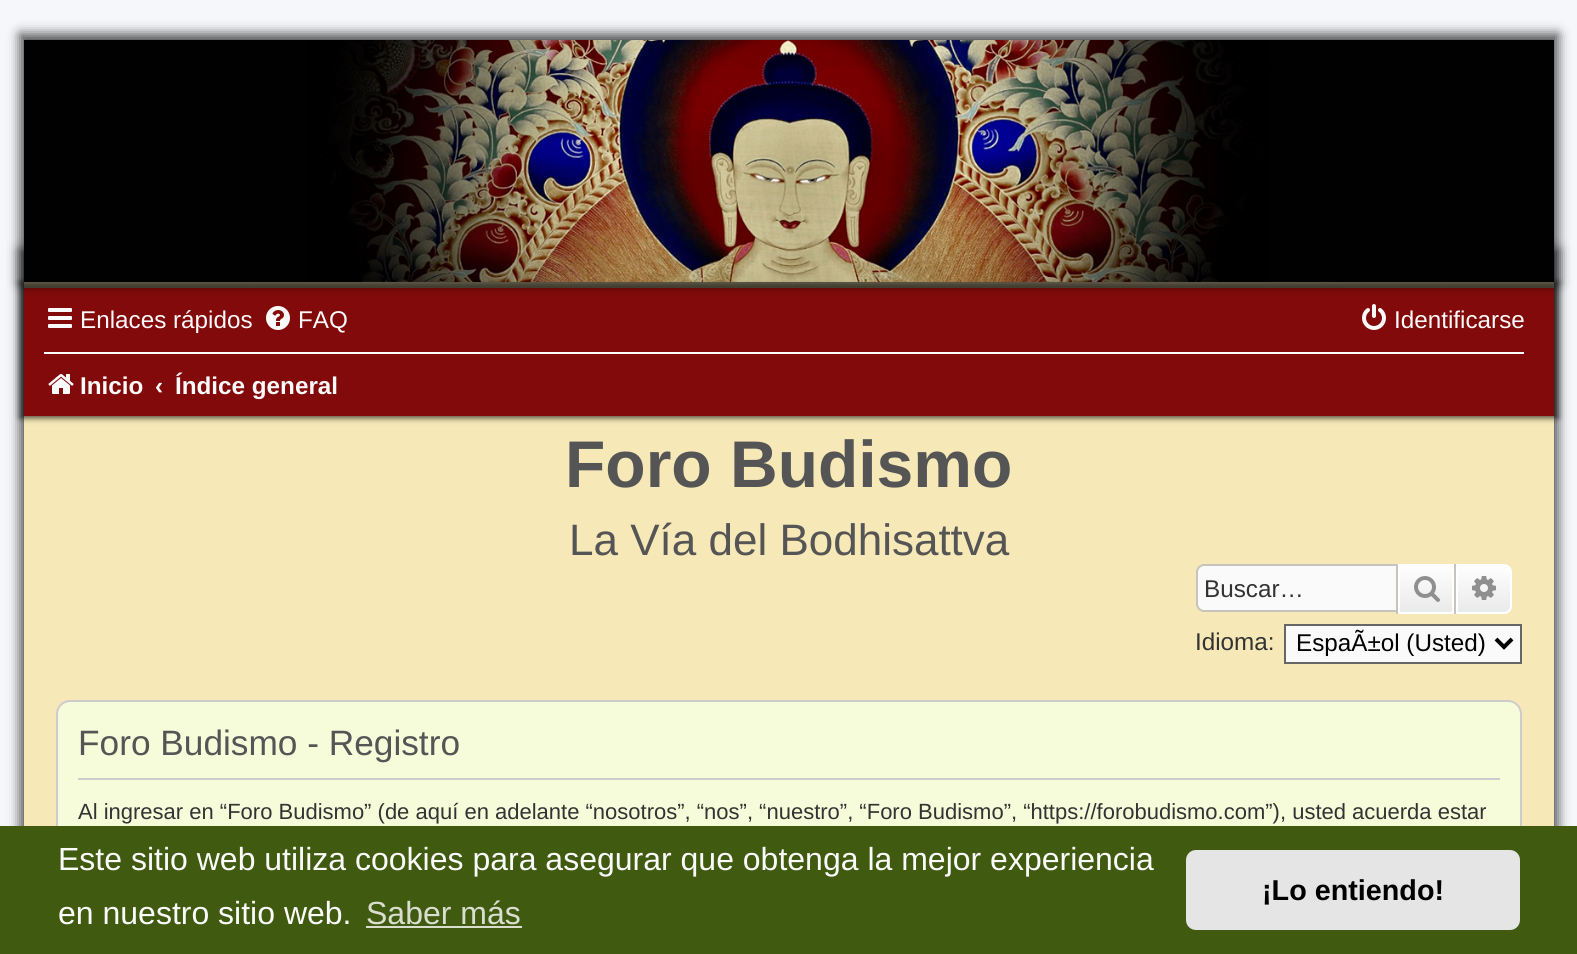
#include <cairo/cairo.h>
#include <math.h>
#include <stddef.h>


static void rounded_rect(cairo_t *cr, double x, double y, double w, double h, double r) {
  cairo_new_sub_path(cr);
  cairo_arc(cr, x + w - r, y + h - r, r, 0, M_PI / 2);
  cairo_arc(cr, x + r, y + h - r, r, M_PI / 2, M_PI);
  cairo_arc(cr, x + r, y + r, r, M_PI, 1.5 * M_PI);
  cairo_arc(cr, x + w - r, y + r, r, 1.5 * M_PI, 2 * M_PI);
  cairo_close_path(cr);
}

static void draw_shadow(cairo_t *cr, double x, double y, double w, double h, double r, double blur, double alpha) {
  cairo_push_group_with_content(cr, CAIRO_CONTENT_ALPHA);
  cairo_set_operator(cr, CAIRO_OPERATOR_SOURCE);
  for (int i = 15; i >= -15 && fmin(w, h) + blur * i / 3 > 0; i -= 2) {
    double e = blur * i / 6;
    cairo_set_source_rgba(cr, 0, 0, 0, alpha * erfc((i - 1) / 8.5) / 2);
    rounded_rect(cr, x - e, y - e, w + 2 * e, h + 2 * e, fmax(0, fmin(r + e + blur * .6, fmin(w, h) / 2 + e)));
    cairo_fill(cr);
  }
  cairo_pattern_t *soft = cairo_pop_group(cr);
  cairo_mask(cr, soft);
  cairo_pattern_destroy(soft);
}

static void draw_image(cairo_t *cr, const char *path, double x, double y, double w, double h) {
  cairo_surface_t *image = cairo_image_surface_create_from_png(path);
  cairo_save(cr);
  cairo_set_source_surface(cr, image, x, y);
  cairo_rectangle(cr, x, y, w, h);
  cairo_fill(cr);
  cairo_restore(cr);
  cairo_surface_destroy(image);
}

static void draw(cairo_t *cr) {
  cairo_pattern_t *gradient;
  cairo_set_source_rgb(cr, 245 / 255.0, 247 / 255.0, 250 / 255.0);
  cairo_paint(cr);
  cairo_set_source_rgb(cr, 2 / 255.0, 2 / 255.0, 2 / 255.0);
  draw_shadow(cr, 20, 250, 1538, 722, 0, 6, 0.7);
  cairo_set_source_rgb(cr, 246 / 255.0, 232 / 255.0, 183 / 255.0);
  cairo_rectangle(cr, 24, 282, 1530, 544);
  cairo_fill(cr);
  cairo_set_source_rgb(cr, 2 / 255.0, 2 / 255.0, 2 / 255.0);
  draw_shadow(cr, 20, 282, 1538, 136, 0, 3, 0.7);
  cairo_set_source_rgb(cr, 130 / 255.0, 10 / 255.0, 10 / 255.0);
  cairo_rectangle(cr, 24, 288, 1530, 128);
  cairo_fill(cr);
  cairo_set_source_rgb(cr, 2 / 255.0, 2 / 255.0, 2 / 255.0);
  draw_shadow(cr, 20, 34, 1538, 250, 0, 6, 0.7);
  draw_image(cr, "images/1.png", 24, 40, 1530, 242);
  draw_image(cr, "images/2.png", 48, 308, 24, 20);
  draw_image(cr, "images/3.png", 266, 306, 24, 24);
  draw_image(cr, "images/4.png", 1362, 304, 24, 26);
  cairo_set_source_rgb(cr, 1, 1, 1);
  cairo_rectangle(cr, 44, 352, 1480, 2);
  cairo_fill(cr);
  draw_image(cr, "images/5.png", 48, 374, 26, 20);
  cairo_set_source_rgb(cr, 250 / 255.0, 250 / 255.0, 250 / 255.0);
  cairo_new_path(cr);
  cairo_move_to(cr, 1204, 566);
  cairo_line_to(cr, 1396, 566);
  cairo_line_to(cr, 1396, 610);
  cairo_line_to(cr, 1204, 610);
  cairo_curve_to(cr, 1200.5, 610, 1198, 607.5, 1198, 604);
  cairo_line_to(cr, 1198, 572);
  cairo_curve_to(cr, 1198, 568.5, 1200.5, 566, 1204, 566);
  cairo_close_path(cr);
  cairo_fill(cr);
  cairo_set_source_rgb(cr, 199 / 255.0, 195 / 255.0, 191 / 255.0);
  cairo_set_fill_rule(cr, CAIRO_FILL_RULE_EVEN_ODD);
  cairo_new_path(cr);
  cairo_move_to(cr, 1204, 564);
  cairo_line_to(cr, 1396, 564);
  cairo_line_to(cr, 1396, 612);
  cairo_line_to(cr, 1204, 612);
  cairo_curve_to(cr, 1200, 612, 1196, 608, 1196, 604);
  cairo_line_to(cr, 1196, 572);
  cairo_curve_to(cr, 1196, 568, 1200, 564, 1204, 564);
  cairo_close_path(cr);
  cairo_move_to(cr, 1204, 566);
  cairo_line_to(cr, 1396, 566);
  cairo_line_to(cr, 1396, 610);
  cairo_line_to(cr, 1204, 610);
  cairo_curve_to(cr, 1201, 610, 1198, 607, 1198, 604);
  cairo_line_to(cr, 1198, 572);
  cairo_curve_to(cr, 1198, 569, 1201, 566, 1204, 566);
  cairo_close_path(cr);
  cairo_fill(cr);
  gradient = cairo_pattern_create_linear(1426, 564, 1426, 614);
  cairo_pattern_add_color_stop_rgba(gradient, 0, 1, 1, 1, 1);
  cairo_pattern_add_color_stop_rgba(gradient, 1, 233 / 255.0, 233 / 255.0, 233 / 255.0, 1);
  cairo_set_source(cr, gradient);
  cairo_pattern_destroy(gradient);
  cairo_rectangle(cr, 1400, 566, 52, 46);
  cairo_fill(cr);
  cairo_rectangle(cr, 1399, 565, 54, 48);
  cairo_set_source_rgb(cr, 1, 1, 1);
  cairo_stroke(cr);
  cairo_set_source_rgb(cr, 199 / 255.0, 195 / 255.0, 191 / 255.0);
  cairo_rectangle(cr, 1454, 564, 2, 50);
  cairo_fill(cr);
  cairo_rectangle(cr, 1396, 564, 2, 50);
  cairo_fill(cr);
  draw_image(cr, "images/6.png", 1414, 576, 26, 26);
  gradient = cairo_pattern_create_linear(1484, 564, 1484, 614);
  cairo_pattern_add_color_stop_rgba(gradient, 0, 1, 1, 1, 1);
  cairo_pattern_add_color_stop_rgba(gradient, 1, 233 / 255.0, 233 / 255.0, 233 / 255.0, 1);
  cairo_set_source(cr, gradient);
  cairo_pattern_destroy(gradient);
  cairo_new_path(cr);
  cairo_move_to(cr, 1457, 565);
  cairo_line_to(cr, 1504, 565);
  cairo_curve_to(cr, 1508, 565, 1511, 568, 1511, 572);
  cairo_line_to(cr, 1511, 606);
  cairo_curve_to(cr, 1511, 610, 1508, 613, 1504, 613);
  cairo_line_to(cr, 1457, 613);
  cairo_close_path(cr);
  cairo_fill_preserve(cr);
  cairo_set_source_rgb(cr, 1, 1, 1);
  cairo_stroke(cr);
  draw_image(cr, "images/7.png", 1472, 576, 24, 24);
  cairo_set_source_rgb(cr, 250 / 255.0, 250 / 255.0, 250 / 255.0);
  cairo_rectangle(cr, 1285, 625, 236, 38);
  cairo_fill_preserve(cr);
  cairo_set_source_rgb(cr, 102 / 255.0, 102 / 255.0, 102 / 255.0);
  cairo_stroke(cr);
  cairo_new_path(cr);
  cairo_move_to(cr, 1496, 639);
  cairo_line_to(cr, 1504, 647);
  cairo_line_to(cr, 1512, 639);
  cairo_set_source_rgb(cr, 0, 0, 0);
  cairo_set_line_width(cr, 4);
  cairo_stroke(cr);
  cairo_set_source_rgb(cr, 246 / 255.0, 251 / 255.0, 218 / 255.0);
  rounded_rect(cr, 57, 701, 1464, 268, 13);
  cairo_fill_preserve(cr);
  cairo_set_source_rgb(cr, 204 / 255.0, 204 / 255.0, 204 / 255.0);
  cairo_set_line_width(cr, 2);
  cairo_stroke(cr);
  cairo_rectangle(cr, 78, 778, 1422, 2);
  cairo_fill(cr);
  cairo_set_source_rgb(cr, 64 / 255.0, 90 / 255.0, 16 / 255.0);
  cairo_rectangle(cr, 0, 826, 1577, 128);
  cairo_fill(cr);
  cairo_set_source_rgb(cr, 217 / 255.0, 222 / 255.0, 207 / 255.0);
  cairo_rectangle(cr, 366, 926, 156, 2);
  cairo_fill(cr);
  cairo_set_source_rgb(cr, 229 / 255.0, 229 / 255.0, 229 / 255.0);
  rounded_rect(cr, 1186, 850, 334, 80, 10);
  cairo_fill(cr);
  cairo_select_font_face(cr, "Liberation Sans", CAIRO_FONT_SLANT_NORMAL, CAIRO_FONT_WEIGHT_NORMAL);
  cairo_set_font_size(cr, 24.25);
  cairo_set_source_rgb(cr, 250 / 255.0, 250 / 255.0, 250 / 255.0);
  cairo_move_to(cr, 80, 328);
  cairo_show_text(cr, "Enlaces rápidos");
  cairo_move_to(cr, 298, 328);
  cairo_show_text(cr, "FAQ");
  cairo_move_to(cr, 1394, 328);
  cairo_show_text(cr, "Identificarse");
  cairo_select_font_face(cr, "Liberation Sans", CAIRO_FONT_SLANT_NORMAL, CAIRO_FONT_WEIGHT_BOLD);
  cairo_move_to(cr, 80, 394);
  cairo_show_text(cr, "Inicio");
  cairo_move_to(cr, 155, 394);
  cairo_show_text(cr, "‹");
  cairo_move_to(cr, 175, 394);
  cairo_show_text(cr, "Índice general");
  cairo_set_font_size(cr, 66);
  cairo_set_source_rgb(cr, 85 / 255.0, 85 / 255.0, 85 / 255.0);
  cairo_move_to(cr, 565, 487);
  cairo_show_text(cr, "Foro Budismo");
  cairo_select_font_face(cr, "Liberation Sans", CAIRO_FONT_SLANT_NORMAL, CAIRO_FONT_WEIGHT_NORMAL);
  cairo_set_font_size(cr, 44);
  cairo_move_to(cr, 569, 555);
  cairo_show_text(cr, "La Vía del Bodhisattva");
  cairo_set_font_size(cr, 24.25);
  cairo_set_source_rgb(cr, 51 / 255.0, 51 / 255.0, 51 / 255.0);
  cairo_move_to(cr, 1204, 597);
  cairo_show_text(cr, "Buscar…");
  cairo_move_to(cr, 1195, 650);
  cairo_show_text(cr, "Idioma:");
  cairo_set_source_rgb(cr, 0, 0, 0);
  cairo_move_to(cr, 1296, 651);
  cairo_show_text(cr, "EspaÃ±ol (Usted)");
  cairo_set_font_size(cr, 35.25);
  cairo_set_source_rgb(cr, 85 / 255.0, 85 / 255.0, 85 / 255.0);
  cairo_move_to(cr, 78, 755);
  cairo_show_text(cr, "Foro Budismo - Registro");
  cairo_set_font_size(cr, 22);
  cairo_set_source_rgb(cr, 51 / 255.0, 51 / 255.0, 51 / 255.0);
  cairo_move_to(cr, 78, 819);
  cairo_show_text(cr, "Al ingresar en “Foro Budismo” (de aquí en adelante “nosotros”, “nos”, “nuestro”, “Foro Budismo”, “https://forobudismo.com”), usted acuerda estar");
  cairo_set_font_size(cr, 32);
  cairo_set_source_rgb(cr, 250 / 255.0, 250 / 255.0, 250 / 255.0);
  cairo_move_to(cr, 58, 870);
  cairo_show_text(cr, "Este sitio web utiliza cookies para asegurar que obtenga la mejor experiencia");
  cairo_move_to(cr, 58, 924);
  cairo_show_text(cr, "en nuestro sitio web.");
  cairo_set_source_rgb(cr, 217 / 255.0, 222 / 255.0, 207 / 255.0);
  cairo_move_to(cr, 366, 924);
  cairo_show_text(cr, "Saber más");
  cairo_select_font_face(cr, "Liberation Sans", CAIRO_FONT_SLANT_NORMAL, CAIRO_FONT_WEIGHT_BOLD);
  cairo_set_font_size(cr, 28.75);
  cairo_set_source_rgb(cr, 0, 0, 0);
  cairo_move_to(cr, 1262, 900);
  cairo_show_text(cr, "¡Lo entiendo!");
}

int main(void) {
  cairo_surface_t *surface = cairo_image_surface_create(CAIRO_FORMAT_RGB24, 1577, 954);
  cairo_t *cr = cairo_create(surface);
  cairo_font_options_t *options = cairo_font_options_create();
  cairo_font_options_set_hint_metrics(options, CAIRO_HINT_METRICS_OFF);
  cairo_font_options_set_hint_style(options, CAIRO_HINT_STYLE_NONE);
  cairo_set_font_options(cr, options);
  cairo_set_miter_limit(cr, 4);
  draw(cr);
  cairo_surface_write_to_png(surface, "out.png");
  cairo_font_options_destroy(options);
  cairo_destroy(cr);
  cairo_surface_destroy(surface);
  return 0;
}
